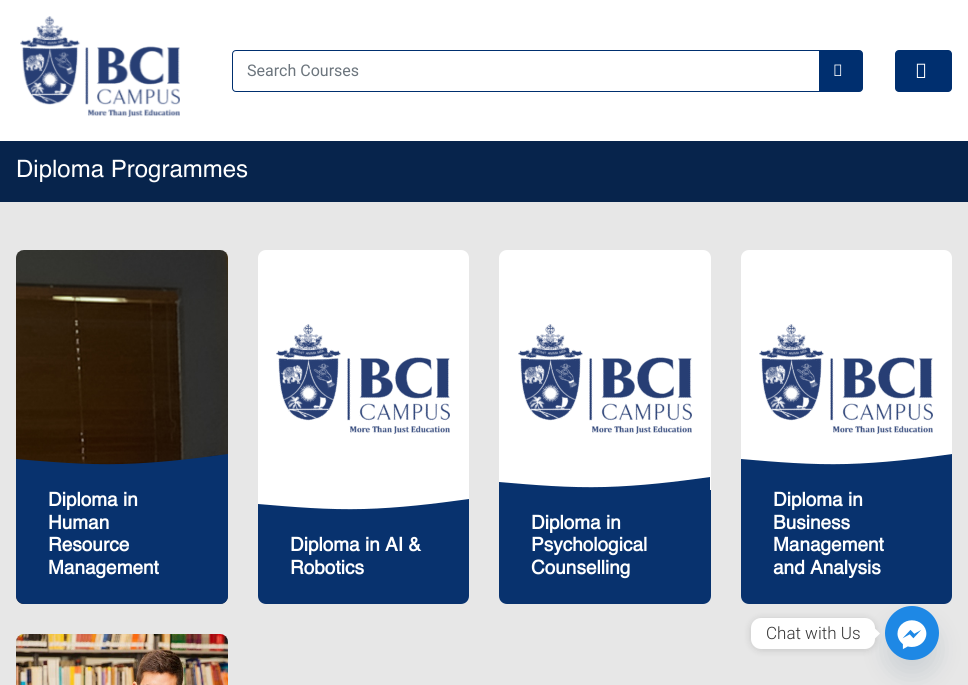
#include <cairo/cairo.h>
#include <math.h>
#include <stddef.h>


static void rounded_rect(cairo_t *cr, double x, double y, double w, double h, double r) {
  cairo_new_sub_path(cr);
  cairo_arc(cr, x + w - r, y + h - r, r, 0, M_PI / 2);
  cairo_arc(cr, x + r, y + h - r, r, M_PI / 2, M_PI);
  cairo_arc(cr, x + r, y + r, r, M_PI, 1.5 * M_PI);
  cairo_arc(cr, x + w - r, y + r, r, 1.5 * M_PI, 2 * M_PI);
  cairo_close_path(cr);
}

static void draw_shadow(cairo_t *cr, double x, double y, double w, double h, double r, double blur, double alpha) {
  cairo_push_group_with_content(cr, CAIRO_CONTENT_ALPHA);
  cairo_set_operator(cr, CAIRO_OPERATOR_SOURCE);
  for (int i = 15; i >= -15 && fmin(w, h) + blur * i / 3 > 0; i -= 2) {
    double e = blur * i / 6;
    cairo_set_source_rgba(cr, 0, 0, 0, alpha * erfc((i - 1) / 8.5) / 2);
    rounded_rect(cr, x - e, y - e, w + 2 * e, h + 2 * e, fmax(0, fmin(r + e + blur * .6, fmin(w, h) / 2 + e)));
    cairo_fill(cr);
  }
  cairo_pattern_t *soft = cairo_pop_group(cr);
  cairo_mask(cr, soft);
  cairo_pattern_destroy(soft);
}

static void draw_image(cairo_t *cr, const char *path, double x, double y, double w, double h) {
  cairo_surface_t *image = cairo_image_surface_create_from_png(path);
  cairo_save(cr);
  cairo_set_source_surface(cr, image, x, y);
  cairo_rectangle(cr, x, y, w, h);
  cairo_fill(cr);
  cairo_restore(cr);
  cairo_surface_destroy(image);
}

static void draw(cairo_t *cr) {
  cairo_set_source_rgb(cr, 1, 1, 1);
  cairo_paint(cr);
  draw_image(cr, "images/1.png", 20, 16, 160, 101);
  cairo_set_source_rgb(cr, 0, 47 / 255.0, 111 / 255.0);
  cairo_new_path(cr);
  cairo_move_to(cr, 819.5, 50.5);
  cairo_line_to(cr, 859, 50.5);
  cairo_curve_to(cr, 861, 50.5, 862.5, 52, 862.5, 54);
  cairo_line_to(cr, 862.5, 88);
  cairo_curve_to(cr, 862.5, 90, 861, 91.5, 859, 91.5);
  cairo_line_to(cr, 819.5, 91.5);
  cairo_close_path(cr);
  cairo_fill_preserve(cr);
  cairo_set_line_width(cr, 1);
  cairo_stroke(cr);
  cairo_new_path(cr);
  cairo_move_to(cr, 236, 50.5);
  cairo_line_to(cr, 819.5, 50.5);
  cairo_line_to(cr, 819.5, 91.5);
  cairo_line_to(cr, 236, 91.5);
  cairo_curve_to(cr, 234, 91.5, 232.5, 90, 232.5, 88);
  cairo_line_to(cr, 232.5, 54);
  cairo_curve_to(cr, 232.5, 52, 234, 50.5, 236, 50.5);
  cairo_close_path(cr);
  cairo_stroke(cr);
  draw_image(cr, "images/2.png", 834, 64, 8, 12);
  rounded_rect(cr, 895, 50, 57, 42, 4);
  cairo_fill(cr);
  draw_image(cr, "images/3.png", 916, 63, 10, 15);
  cairo_set_source_rgb(cr, 7 / 255.0, 36 / 255.0, 76 / 255.0);
  cairo_rectangle(cr, 0, 141, 968, 61);
  cairo_fill(cr);
  cairo_set_source_rgb(cr, 231 / 255.0, 231 / 255.0, 231 / 255.0);
  cairo_rectangle(cr, 0, 202, 968, 483);
  cairo_fill(cr);
  draw_image(cr, "images/4.png", 16, 250, 212, 354);
  cairo_set_source_rgb(cr, 8 / 255.0, 50 / 255.0, 110 / 255.0);
  cairo_new_path(cr);
  cairo_move_to(cr, 16, 467);
  cairo_line_to(cr, 228, 467);
  cairo_line_to(cr, 228, 596);
  cairo_curve_to(cr, 228, 600.5, 224.5, 604, 220, 604);
  cairo_line_to(cr, 24, 604);
  cairo_curve_to(cr, 19.5, 604, 16, 600.5, 16, 596);
  cairo_close_path(cr);
  cairo_fill(cr);
  cairo_new_path(cr);
  cairo_move_to(cr, 16, 459);
  cairo_curve_to(cr, 51, 462, 86, 465, 122, 464);
  cairo_curve_to(cr, 157, 463, 192, 459, 228, 454);
  cairo_line_to(cr, 228, 468);
  cairo_line_to(cr, 16, 468);
  cairo_close_path(cr);
  cairo_fill(cr);
  cairo_set_source_rgb(cr, 1, 1, 1);
  rounded_rect(cr, 258, 250, 211, 354, 8);
  cairo_fill(cr);
  draw_image(cr, "images/5.png", 276, 324, 174, 110);
  cairo_set_source_rgb(cr, 8 / 255.0, 50 / 255.0, 110 / 255.0);
  cairo_new_path(cr);
  cairo_move_to(cr, 258, 512);
  cairo_line_to(cr, 469, 512);
  cairo_line_to(cr, 469, 596);
  cairo_curve_to(cr, 469, 600.5, 465.5, 604, 461, 604);
  cairo_line_to(cr, 266, 604);
  cairo_curve_to(cr, 261.5, 604, 258, 600.5, 258, 596);
  cairo_close_path(cr);
  cairo_fill(cr);
  cairo_new_path(cr);
  cairo_move_to(cr, 258, 504);
  cairo_line_to(cr, 258, 513);
  cairo_line_to(cr, 469, 513);
  cairo_line_to(cr, 469, 499);
  cairo_curve_to(cr, 433, 504, 399, 508, 364, 509);
  cairo_curve_to(cr, 328, 510, 293, 507, 258, 504);
  cairo_close_path(cr);
  cairo_fill(cr);
  cairo_set_source_rgb(cr, 1, 1, 1);
  rounded_rect(cr, 499, 250, 212, 354, 8);
  cairo_fill(cr);
  draw_image(cr, "images/5.png", 518, 324, 174, 110);
  cairo_set_source_rgb(cr, 8 / 255.0, 50 / 255.0, 110 / 255.0);
  cairo_new_path(cr);
  cairo_move_to(cr, 499, 490);
  cairo_line_to(cr, 711, 490);
  cairo_line_to(cr, 711, 596);
  cairo_curve_to(cr, 711, 600.5, 707.5, 604, 703, 604);
  cairo_line_to(cr, 507, 604);
  cairo_curve_to(cr, 502.5, 604, 499, 600.5, 499, 596);
  cairo_close_path(cr);
  cairo_fill(cr);
  cairo_new_path(cr);
  cairo_move_to(cr, 499, 482);
  cairo_curve_to(cr, 534, 485, 569, 488, 605, 487);
  cairo_curve_to(cr, 640, 486, 675, 482, 710, 477);
  cairo_line_to(cr, 710, 491);
  cairo_line_to(cr, 499, 491);
  cairo_close_path(cr);
  cairo_fill(cr);
  cairo_set_source_rgb(cr, 1, 1, 1);
  rounded_rect(cr, 741, 250, 211, 354, 8);
  cairo_fill(cr);
  draw_image(cr, "images/5.png", 759, 324, 174, 110);
  cairo_set_source_rgb(cr, 8 / 255.0, 50 / 255.0, 110 / 255.0);
  cairo_new_path(cr);
  cairo_move_to(cr, 741, 467);
  cairo_line_to(cr, 952, 467);
  cairo_line_to(cr, 952, 596);
  cairo_curve_to(cr, 952, 600.5, 948.5, 604, 944, 604);
  cairo_line_to(cr, 749, 604);
  cairo_curve_to(cr, 744.5, 604, 741, 600.5, 741, 596);
  cairo_close_path(cr);
  cairo_fill(cr);
  cairo_new_path(cr);
  cairo_move_to(cr, 741, 459);
  cairo_curve_to(cr, 776, 462, 811, 465, 847, 464);
  cairo_curve_to(cr, 882, 463, 917, 459, 952, 454);
  cairo_line_to(cr, 952, 468);
  cairo_line_to(cr, 741, 468);
  cairo_close_path(cr);
  cairo_fill(cr);
  draw_image(cr, "images/6.png", 16, 634, 212, 51);
  cairo_set_source_rgb(cr, 73 / 255.0, 104 / 255.0, 126 / 255.0);
  draw_shadow(cr, 885, 622, 54, 54, 27, 12, 0.16);
  draw_image(cr, "images/7.png", 885, 606, 54, 54);
  cairo_set_source_rgb(cr, 0, 0, 0);
  draw_shadow(cr, 751, 619, 124, 31, 10, 4, 0.15);
  cairo_set_source_rgb(cr, 1, 1, 1);
  rounded_rect(cr, 751, 618, 124, 31, 10);
  cairo_fill(cr);
  cairo_new_path(cr);
  cairo_move_to(cr, 875, 638.5);
  cairo_line_to(cr, 875, 628.5);
  cairo_line_to(cr, 880, 633.5);
  cairo_close_path(cr);
  cairo_fill(cr);
  cairo_select_font_face(cr, "Roboto", CAIRO_FONT_SLANT_NORMAL, CAIRO_FONT_WEIGHT_NORMAL);
  cairo_set_font_size(cr, 16);
  cairo_set_source_rgb(cr, 108 / 255.0, 117 / 255.0, 125 / 255.0);
  cairo_move_to(cr, 247, 76);
  cairo_show_text(cr, "Search Courses");
  cairo_select_font_face(cr, "Helvetica", CAIRO_FONT_SLANT_NORMAL, CAIRO_FONT_WEIGHT_NORMAL);
  cairo_set_font_size(cr, 24);
  cairo_set_source_rgb(cr, 1, 1, 1);
  cairo_move_to(cr, 16, 177);
  cairo_show_text(cr, "Diploma Programmes");
  cairo_select_font_face(cr, "Helvetica", CAIRO_FONT_SLANT_NORMAL, CAIRO_FONT_WEIGHT_BOLD);
  cairo_set_font_size(cr, 19);
  cairo_move_to(cr, 48, 506);
  cairo_show_text(cr, "Diploma in");
  cairo_move_to(cr, 48, 529);
  cairo_show_text(cr, "Human");
  cairo_move_to(cr, 48, 551);
  cairo_show_text(cr, "Resource");
  cairo_move_to(cr, 48, 574);
  cairo_show_text(cr, "Management");
  cairo_move_to(cr, 290, 551);
  cairo_show_text(cr, "Diploma in AI &");
  cairo_move_to(cr, 290, 574);
  cairo_show_text(cr, "Robotics");
  cairo_move_to(cr, 531, 529);
  cairo_show_text(cr, "Diploma in");
  cairo_move_to(cr, 531, 551);
  cairo_show_text(cr, "Psychological");
  cairo_move_to(cr, 531, 574);
  cairo_show_text(cr, "Counselling");
  cairo_move_to(cr, 773, 506);
  cairo_show_text(cr, "Diploma in");
  cairo_move_to(cr, 773, 529);
  cairo_show_text(cr, "Business");
  cairo_move_to(cr, 773, 551);
  cairo_show_text(cr, "Management");
  cairo_move_to(cr, 773, 574);
  cairo_show_text(cr, "and Analysis");
  cairo_select_font_face(cr, "Roboto Light", CAIRO_FONT_SLANT_NORMAL, CAIRO_FONT_WEIGHT_NORMAL);
  cairo_set_font_size(cr, 17);
  cairo_set_source_rgb(cr, 51 / 255.0, 51 / 255.0, 51 / 255.0);
  cairo_move_to(cr, 766, 639);
  cairo_show_text(cr, "Chat with Us");
}

int main(void) {
  cairo_surface_t *surface = cairo_image_surface_create(CAIRO_FORMAT_RGB24, 968, 685);
  cairo_t *cr = cairo_create(surface);
  cairo_font_options_t *options = cairo_font_options_create();
  cairo_font_options_set_hint_metrics(options, CAIRO_HINT_METRICS_OFF);
  cairo_font_options_set_hint_style(options, CAIRO_HINT_STYLE_NONE);
  cairo_set_font_options(cr, options);
  cairo_set_miter_limit(cr, 4);
  draw(cr);
  cairo_surface_write_to_png(surface, "out.png");
  cairo_font_options_destroy(options);
  cairo_destroy(cr);
  cairo_surface_destroy(surface);
  return 0;
}
